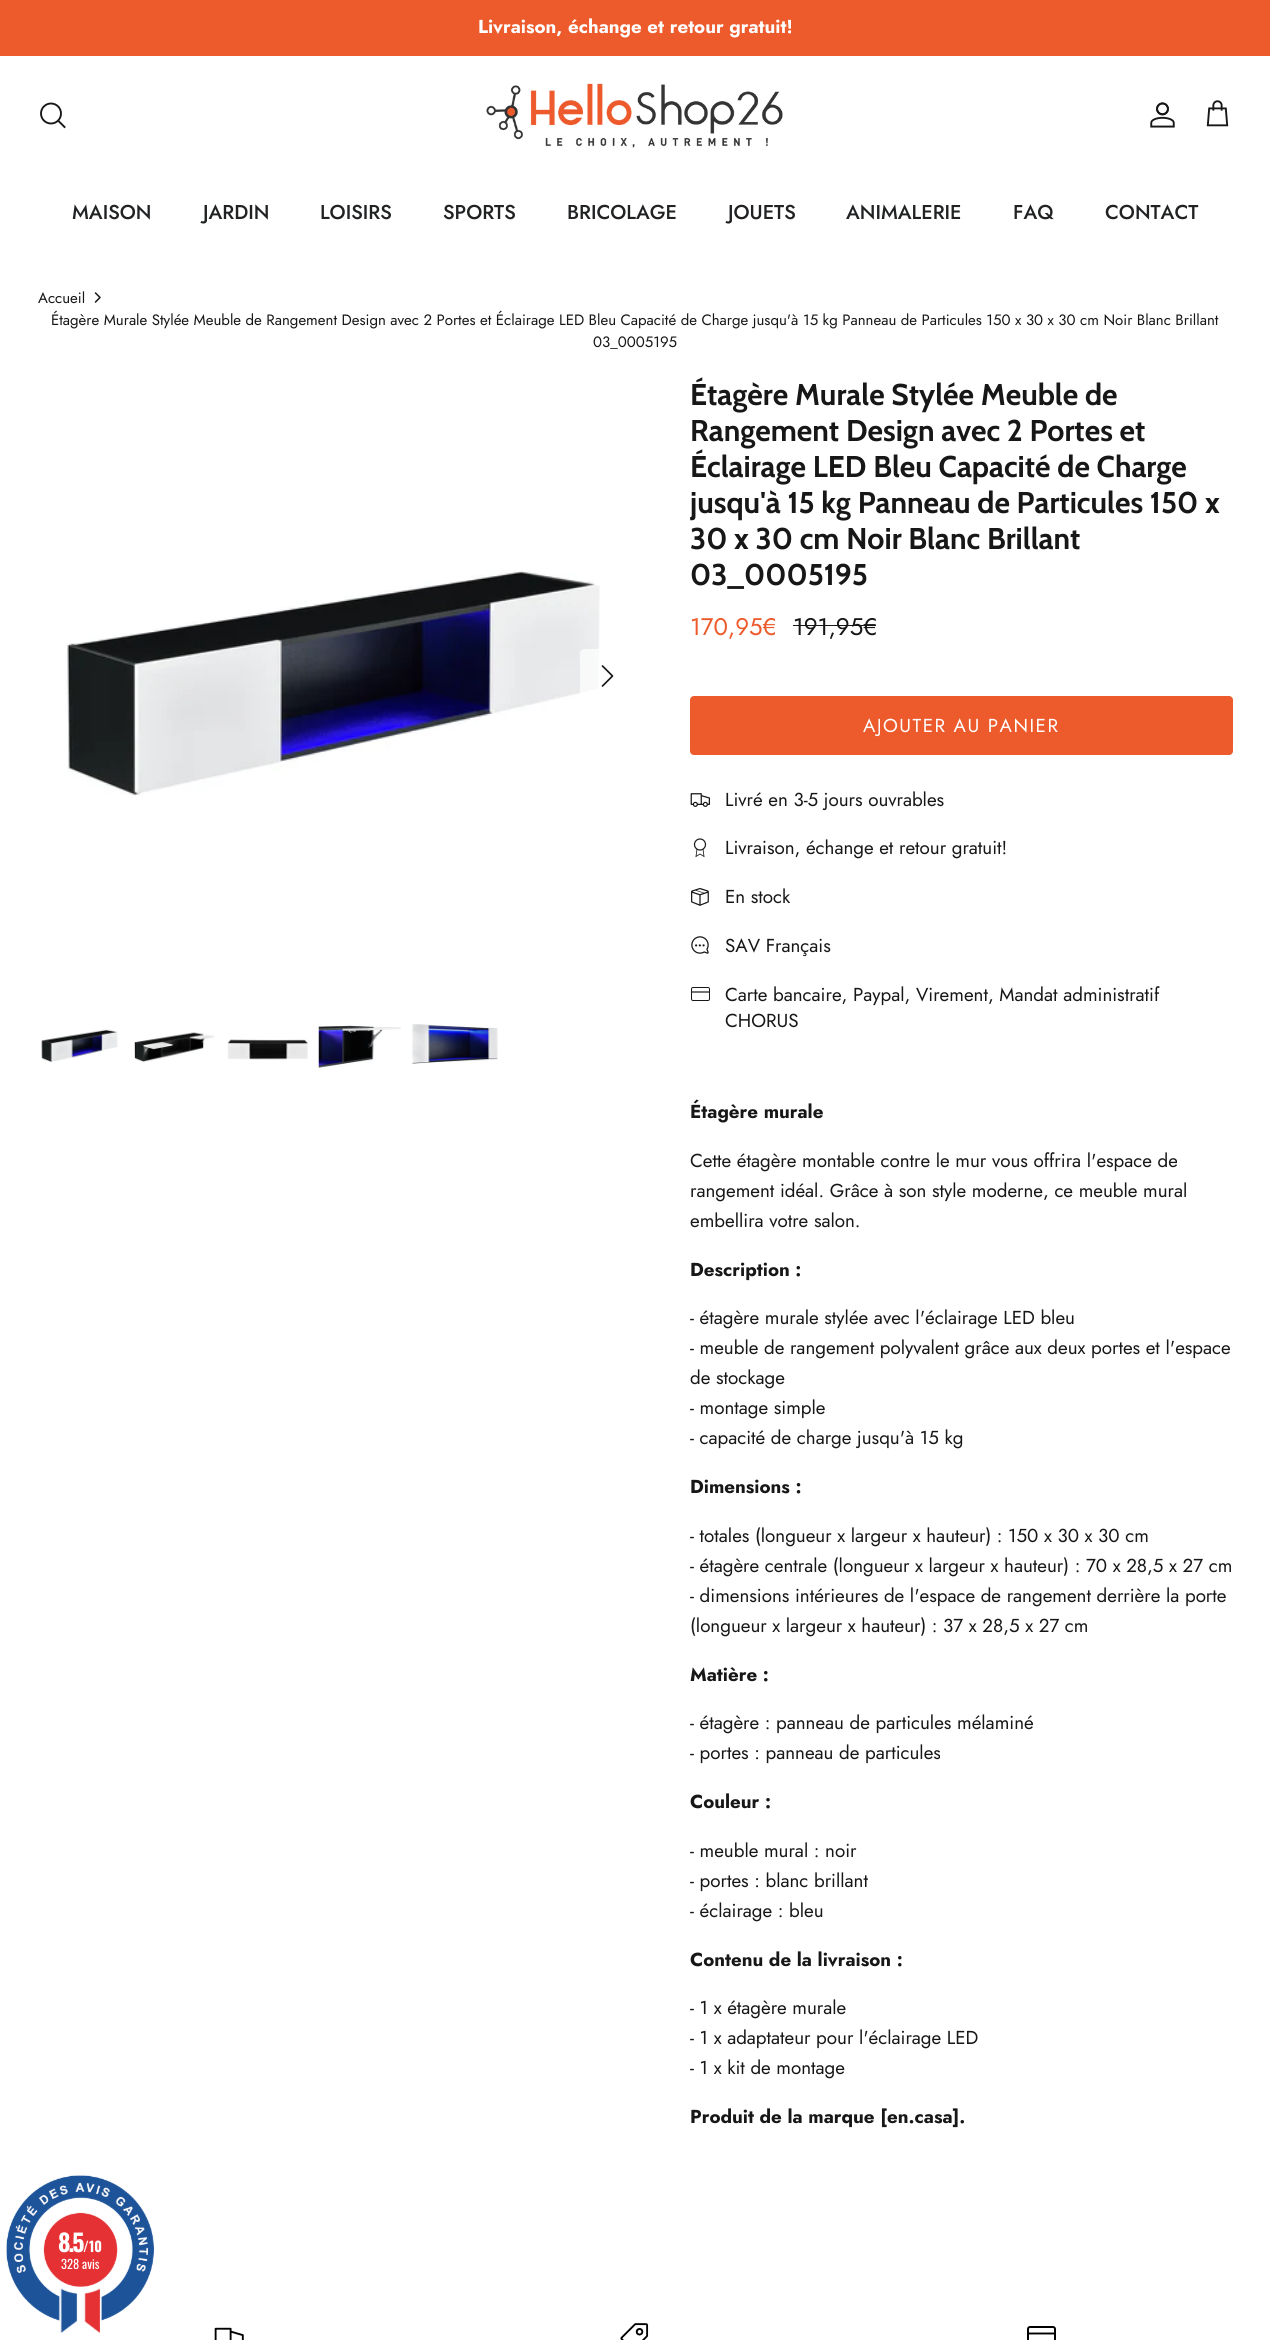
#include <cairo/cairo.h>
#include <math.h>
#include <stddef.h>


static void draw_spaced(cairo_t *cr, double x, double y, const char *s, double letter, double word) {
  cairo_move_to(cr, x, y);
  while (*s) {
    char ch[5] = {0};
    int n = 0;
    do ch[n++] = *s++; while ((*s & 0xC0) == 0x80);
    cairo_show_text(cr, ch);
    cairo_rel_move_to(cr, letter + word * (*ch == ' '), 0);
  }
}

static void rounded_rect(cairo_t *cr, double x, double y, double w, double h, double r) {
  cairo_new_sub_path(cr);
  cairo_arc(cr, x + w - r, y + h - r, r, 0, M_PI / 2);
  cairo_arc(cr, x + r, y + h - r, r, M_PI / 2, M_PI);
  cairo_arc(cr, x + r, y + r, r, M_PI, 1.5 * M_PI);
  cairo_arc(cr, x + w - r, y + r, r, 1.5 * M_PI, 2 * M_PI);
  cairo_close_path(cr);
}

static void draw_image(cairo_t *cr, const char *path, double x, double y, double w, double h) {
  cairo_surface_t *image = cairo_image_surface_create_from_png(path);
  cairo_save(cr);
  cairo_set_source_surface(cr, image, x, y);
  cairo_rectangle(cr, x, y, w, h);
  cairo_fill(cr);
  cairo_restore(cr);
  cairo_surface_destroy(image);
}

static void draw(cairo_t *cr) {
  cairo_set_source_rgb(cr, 1, 1, 1);
  cairo_paint(cr);
  cairo_set_source_rgb(cr, 237 / 255.0, 90 / 255.0, 43 / 255.0);
  cairo_rectangle(cr, 0, 0, 1270, 56);
  cairo_fill(cr);
  cairo_arc(cr, 51, 113.5, 10, 0, 2 * M_PI);
  cairo_set_source_rgb(cr, 23 / 255.0, 23 / 255.0, 23 / 255.0);
  cairo_set_line_width(cr, 1.9);
  cairo_stroke(cr);
  cairo_new_path(cr);
  cairo_move_to(cr, 58.5, 121);
  cairo_line_to(cr, 64.5, 127);
  cairo_set_line_cap(cr, CAIRO_LINE_CAP_SQUARE);
  cairo_stroke(cr);
  draw_image(cr, "images/1.png", 486, 83, 297, 65);
  draw_image(cr, "images/2.png", 1150, 102, 25, 26);
  draw_image(cr, "images/3.png", 1206, 100, 23, 27);
  cairo_new_path(cr);
  cairo_move_to(cr, 95.5, 302);
  cairo_line_to(cr, 100, 297.5);
  cairo_line_to(cr, 95.5, 293);
  cairo_set_line_width(cr, 1.5);
  cairo_set_line_cap(cr, CAIRO_LINE_CAP_ROUND);
  cairo_set_line_join(cr, CAIRO_LINE_JOIN_ROUND);
  cairo_stroke(cr);
  draw_image(cr, "images/4.png", 65, 570, 535, 226);
  cairo_set_source_rgba(cr, 1, 1, 1, 0.7);
  cairo_new_path(cr);
  cairo_move_to(cr, 584, 649);
  cairo_line_to(cr, 635, 649);
  cairo_line_to(cr, 635, 704);
  cairo_line_to(cr, 584, 704);
  cairo_curve_to(cr, 582, 704, 580, 702, 580, 700);
  cairo_line_to(cr, 580, 653);
  cairo_curve_to(cr, 580, 651, 582, 649, 584, 649);
  cairo_close_path(cr);
  cairo_fill(cr);
  cairo_new_path(cr);
  cairo_move_to(cr, 602.5, 686);
  cairo_line_to(cr, 612.5, 676);
  cairo_line_to(cr, 602.5, 666);
  cairo_set_source_rgb(cr, 23 / 255.0, 23 / 255.0, 23 / 255.0);
  cairo_set_line_width(cr, 1.7);
  cairo_stroke(cr);
  draw_image(cr, "images/5.png", 41, 1029, 77, 34);
  draw_image(cr, "images/6.png", 134, 1032, 81, 31);
  draw_image(cr, "images/7.png", 227, 1039, 81, 21);
  draw_image(cr, "images/8.png", 318, 1025, 83, 44);
  draw_image(cr, "images/9.png", 412, 1024, 86, 40);
  cairo_rectangle(cr, 793, 625, 83, 1);
  cairo_fill(cr);
  cairo_set_source_rgb(cr, 237 / 255.0, 90 / 255.0, 43 / 255.0);
  rounded_rect(cr, 690.5, 696.5, 542, 58, 3.5);
  cairo_fill_preserve(cr);
  cairo_set_line_width(cr, 1);
  cairo_set_line_cap(cr, CAIRO_LINE_CAP_BUTT);
  cairo_set_line_join(cr, CAIRO_LINE_JOIN_MITER);
  cairo_stroke(cr);
  draw_image(cr, "images/10.png", 690, 793, 20, 14);
  cairo_arc(cr, 700, 844.5, 5.5, 0, 2 * M_PI);
  cairo_set_source_rgb(cr, 23 / 255.0, 23 / 255.0, 23 / 255.0);
  cairo_set_line_width(cr, 1.2);
  cairo_stroke(cr);
  cairo_new_path(cr);
  cairo_move_to(cr, 697, 849);
  cairo_line_to(cr, 696, 856.5);
  cairo_line_to(cr, 700, 854);
  cairo_line_to(cr, 704, 856.5);
  cairo_line_to(cr, 703, 849);
  cairo_set_line_width(cr, 0.8);
  cairo_stroke(cr);
  draw_image(cr, "images/11.png", 691, 888, 18, 18);
  draw_image(cr, "images/12.png", 691, 936, 18, 18);
  rounded_rect(cr, 691.5, 987.5, 18, 13, 1.5);
  cairo_set_line_width(cr, 1);
  cairo_stroke(cr);
  cairo_new_path(cr);
  cairo_move_to(cr, 691, 992);
  cairo_line_to(cr, 709, 992);
  cairo_set_line_width(cr, 1.2);
  cairo_stroke(cr);
  draw_image(cr, "images/13.png", 6, 2175, 148, 158);
  draw_image(cr, "images/14.png", 214, 2327, 30, 13);
  draw_image(cr, "images/15.png", 620, 2323, 29, 17);
  rounded_rect(cr, 1028, 2327, 27, 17, 2);
  cairo_set_source_rgb(cr, 0, 0, 0);
  cairo_set_line_width(cr, 2);
  cairo_stroke(cr);
  cairo_new_path(cr);
  cairo_move_to(cr, 1028, 2333.5);
  cairo_line_to(cr, 1054.5, 2333.5);
  cairo_set_line_width(cr, 1.9);
  cairo_stroke(cr);
  cairo_select_font_face(cr, "Jost", CAIRO_FONT_SLANT_NORMAL, CAIRO_FONT_WEIGHT_BOLD);
  cairo_set_font_size(cr, 18.75);
  cairo_set_source_rgb(cr, 1, 1, 1);
  cairo_move_to(cr, 478, 33);
  cairo_show_text(cr, "Livraison, échange et retour gratuit!");
  cairo_select_font_face(cr, "Jost Medium", CAIRO_FONT_SLANT_NORMAL, CAIRO_FONT_WEIGHT_NORMAL);
  cairo_set_font_size(cr, 20);
  cairo_set_source_rgb(cr, 32 / 255.0, 34 / 255.0, 35 / 255.0);
  cairo_move_to(cr, 72, 219);
  cairo_show_text(cr, "MAISON");
  cairo_move_to(cr, 203, 219);
  cairo_show_text(cr, "JARDIN");
  cairo_move_to(cr, 320, 219);
  cairo_show_text(cr, "LOISIRS");
  cairo_move_to(cr, 443, 219);
  cairo_show_text(cr, "SPORTS");
  cairo_move_to(cr, 567, 219);
  cairo_show_text(cr, "BRICOLAGE");
  cairo_move_to(cr, 728, 219);
  cairo_show_text(cr, "JOUETS");
  cairo_move_to(cr, 846, 219);
  cairo_show_text(cr, "ANIMALERIE");
  cairo_move_to(cr, 1013, 219);
  cairo_show_text(cr, "FAQ");
  cairo_move_to(cr, 1105, 219);
  cairo_show_text(cr, "CONTACT");
  cairo_select_font_face(cr, "Jost", CAIRO_FONT_SLANT_NORMAL, CAIRO_FONT_WEIGHT_NORMAL);
  cairo_set_font_size(cr, 15);
  cairo_set_source_rgb(cr, 23 / 255.0, 23 / 255.0, 23 / 255.0);
  cairo_move_to(cr, 38, 303);
  cairo_show_text(cr, "Accueil");
  cairo_move_to(cr, 51, 325);
  cairo_show_text(cr, "Étagère Murale Stylée Meuble de Rangement Design avec 2 Portes et Éclairage LED Bleu Capacité de Charge jusqu'à 15 kg Panneau de Particules 150 x 30 x 30 cm Noir Blanc Brillant");
  cairo_move_to(cr, 593, 347);
  cairo_show_text(cr, "03_0005195");
  cairo_select_font_face(cr, "Cabin", CAIRO_FONT_SLANT_NORMAL, CAIRO_FONT_WEIGHT_BOLD);
  cairo_set_font_size(cr, 30);
  cairo_move_to(cr, 690, 405);
  cairo_show_text(cr, "Étagère Murale Stylée Meuble de");
  cairo_move_to(cr, 690, 441);
  cairo_show_text(cr, "Rangement Design avec 2 Portes et");
  cairo_move_to(cr, 690, 477);
  cairo_show_text(cr, "Éclairage LED Bleu Capacité de Charge");
  cairo_move_to(cr, 690, 513);
  cairo_show_text(cr, "jusqu'à 15 kg Panneau de Particules 150 x");
  cairo_move_to(cr, 690, 549);
  cairo_show_text(cr, "30 x 30 cm Noir Blanc Brillant");
  cairo_move_to(cr, 690, 585);
  cairo_show_text(cr, "03_0005195");
  cairo_select_font_face(cr, "Jost", CAIRO_FONT_SLANT_NORMAL, CAIRO_FONT_WEIGHT_NORMAL);
  cairo_set_font_size(cr, 24);
  cairo_set_source_rgb(cr, 237 / 255.0, 90 / 255.0, 43 / 255.0);
  cairo_move_to(cr, 690, 635);
  cairo_show_text(cr, "170,95€");
  cairo_set_source_rgb(cr, 23 / 255.0, 23 / 255.0, 23 / 255.0);
  cairo_move_to(cr, 793, 635);
  cairo_show_text(cr, "191,95€");
  cairo_set_font_size(cr, 18.75);
  cairo_set_source_rgb(cr, 1, 1, 1);
  draw_spaced(cr, 863, 732, "AJOUTER AU PANIER", 1.5, 0);
  cairo_set_source_rgb(cr, 23 / 255.0, 23 / 255.0, 23 / 255.0);
  cairo_move_to(cr, 725, 806);
  cairo_show_text(cr, "Livré en 3-5 jours ouvrables");
  cairo_move_to(cr, 725, 854);
  cairo_show_text(cr, "Livraison, échange et retour gratuit!");
  cairo_move_to(cr, 725, 903);
  cairo_show_text(cr, "En stock");
  cairo_move_to(cr, 725, 952);
  cairo_show_text(cr, "SAV Français");
  cairo_move_to(cr, 725, 1001);
  cairo_show_text(cr, "Carte bancaire, Paypal, Virement, Mandat administratif");
  cairo_move_to(cr, 725, 1027);
  cairo_show_text(cr, "CHORUS");
  cairo_select_font_face(cr, "Jost", CAIRO_FONT_SLANT_NORMAL, CAIRO_FONT_WEIGHT_BOLD);
  cairo_move_to(cr, 690, 1118);
  cairo_show_text(cr, "Étagère murale");
  cairo_select_font_face(cr, "Jost", CAIRO_FONT_SLANT_NORMAL, CAIRO_FONT_WEIGHT_NORMAL);
  cairo_move_to(cr, 690, 1167);
  cairo_show_text(cr, "Cette étagère montable contre le mur vous offrira l'espace de");
  cairo_move_to(cr, 690, 1197);
  cairo_show_text(cr, "rangement idéal. Grâce à son style moderne, ce meuble mural");
  cairo_move_to(cr, 690, 1227);
  cairo_show_text(cr, "embellira votre salon.");
  cairo_select_font_face(cr, "Jost", CAIRO_FONT_SLANT_NORMAL, CAIRO_FONT_WEIGHT_BOLD);
  cairo_move_to(cr, 690, 1276);
  cairo_show_text(cr, "Description :");
  cairo_select_font_face(cr, "Jost", CAIRO_FONT_SLANT_NORMAL, CAIRO_FONT_WEIGHT_NORMAL);
  cairo_move_to(cr, 690, 1324);
  cairo_show_text(cr, "- étagère murale stylée avec l'éclairage LED bleu");
  cairo_move_to(cr, 690, 1354);
  cairo_show_text(cr, "- meuble de rangement polyvalent grâce aux deux portes et l'espace");
  cairo_move_to(cr, 690, 1384);
  cairo_show_text(cr, "de stockage");
  cairo_move_to(cr, 690, 1414);
  cairo_show_text(cr, "- montage simple");
  cairo_move_to(cr, 690, 1444);
  cairo_show_text(cr, "- capacité de charge jusqu'à 15 kg");
  cairo_select_font_face(cr, "Jost", CAIRO_FONT_SLANT_NORMAL, CAIRO_FONT_WEIGHT_BOLD);
  cairo_move_to(cr, 690, 1493);
  cairo_show_text(cr, "Dimensions :");
  cairo_select_font_face(cr, "Jost", CAIRO_FONT_SLANT_NORMAL, CAIRO_FONT_WEIGHT_NORMAL);
  cairo_move_to(cr, 690, 1542);
  cairo_show_text(cr, "- totales (longueur x largeur x hauteur) : 150 x 30 x 30 cm");
  cairo_move_to(cr, 690, 1572);
  cairo_show_text(cr, "- étagère centrale (longueur x largeur x hauteur) : 70 x 28,5 x 27 cm");
  cairo_move_to(cr, 690, 1602);
  cairo_show_text(cr, "- dimensions intérieures de l'espace de rangement derrière la porte");
  cairo_move_to(cr, 690, 1632);
  cairo_show_text(cr, "(longueur x largeur x hauteur) : 37 x 28,5 x 27 cm");
  cairo_select_font_face(cr, "Jost", CAIRO_FONT_SLANT_NORMAL, CAIRO_FONT_WEIGHT_BOLD);
  cairo_move_to(cr, 690, 1681);
  cairo_show_text(cr, "Matière :");
  cairo_select_font_face(cr, "Jost", CAIRO_FONT_SLANT_NORMAL, CAIRO_FONT_WEIGHT_NORMAL);
  cairo_move_to(cr, 690, 1729);
  cairo_show_text(cr, "- étagère : panneau de particules mélaminé");
  cairo_move_to(cr, 690, 1759);
  cairo_show_text(cr, "- portes : panneau de particules");
  cairo_select_font_face(cr, "Jost", CAIRO_FONT_SLANT_NORMAL, CAIRO_FONT_WEIGHT_BOLD);
  cairo_move_to(cr, 690, 1808);
  cairo_show_text(cr, "Couleur :");
  cairo_select_font_face(cr, "Jost", CAIRO_FONT_SLANT_NORMAL, CAIRO_FONT_WEIGHT_NORMAL);
  cairo_move_to(cr, 690, 1857);
  cairo_show_text(cr, "- meuble mural : noir");
  cairo_move_to(cr, 690, 1887);
  cairo_show_text(cr, "- portes : blanc brillant");
  cairo_move_to(cr, 690, 1917);
  cairo_show_text(cr, "- éclairage : bleu");
  cairo_select_font_face(cr, "Jost", CAIRO_FONT_SLANT_NORMAL, CAIRO_FONT_WEIGHT_BOLD);
  cairo_move_to(cr, 690, 1966);
  cairo_show_text(cr, "Contenu de la livraison :");
  cairo_select_font_face(cr, "Jost", CAIRO_FONT_SLANT_NORMAL, CAIRO_FONT_WEIGHT_NORMAL);
  cairo_move_to(cr, 690, 2014);
  cairo_show_text(cr, "- 1 x étagère murale");
  cairo_move_to(cr, 690, 2044);
  cairo_show_text(cr, "- 1 x adaptateur pour l'éclairage LED");
  cairo_move_to(cr, 690, 2074);
  cairo_show_text(cr, "- 1 x kit de montage");
  cairo_select_font_face(cr, "Jost", CAIRO_FONT_SLANT_NORMAL, CAIRO_FONT_WEIGHT_BOLD);
  cairo_move_to(cr, 690, 2123);
  cairo_show_text(cr, "Produit de la marque [en.casa].");
  cairo_select_font_face(cr, "Oswald", CAIRO_FONT_SLANT_NORMAL, CAIRO_FONT_WEIGHT_BOLD);
  cairo_set_font_size(cr, 24);
  cairo_set_source_rgb(cr, 1, 1, 1);
  draw_spaced(cr, 58, 2252, "8.5", -2, 0);
  cairo_set_font_size(cr, 14);
  cairo_move_to(cr, 83, 2252);
  cairo_show_text(cr, "/10");
  cairo_select_font_face(cr, "Oswald", CAIRO_FONT_SLANT_NORMAL, CAIRO_FONT_WEIGHT_NORMAL);
  cairo_set_font_size(cr, 12.5);
  cairo_move_to(cr, 61, 2269);
  cairo_show_text(cr, "328 avis");
}

int main(void) {
  cairo_surface_t *surface = cairo_image_surface_create(CAIRO_FORMAT_RGB24, 1270, 2340);
  cairo_t *cr = cairo_create(surface);
  cairo_font_options_t *options = cairo_font_options_create();
  cairo_font_options_set_hint_metrics(options, CAIRO_HINT_METRICS_OFF);
  cairo_font_options_set_hint_style(options, CAIRO_HINT_STYLE_NONE);
  cairo_set_font_options(cr, options);
  cairo_set_miter_limit(cr, 4);
  draw(cr);
  cairo_surface_write_to_png(surface, "out.png");
  cairo_font_options_destroy(options);
  cairo_destroy(cr);
  cairo_surface_destroy(surface);
  return 0;
}
